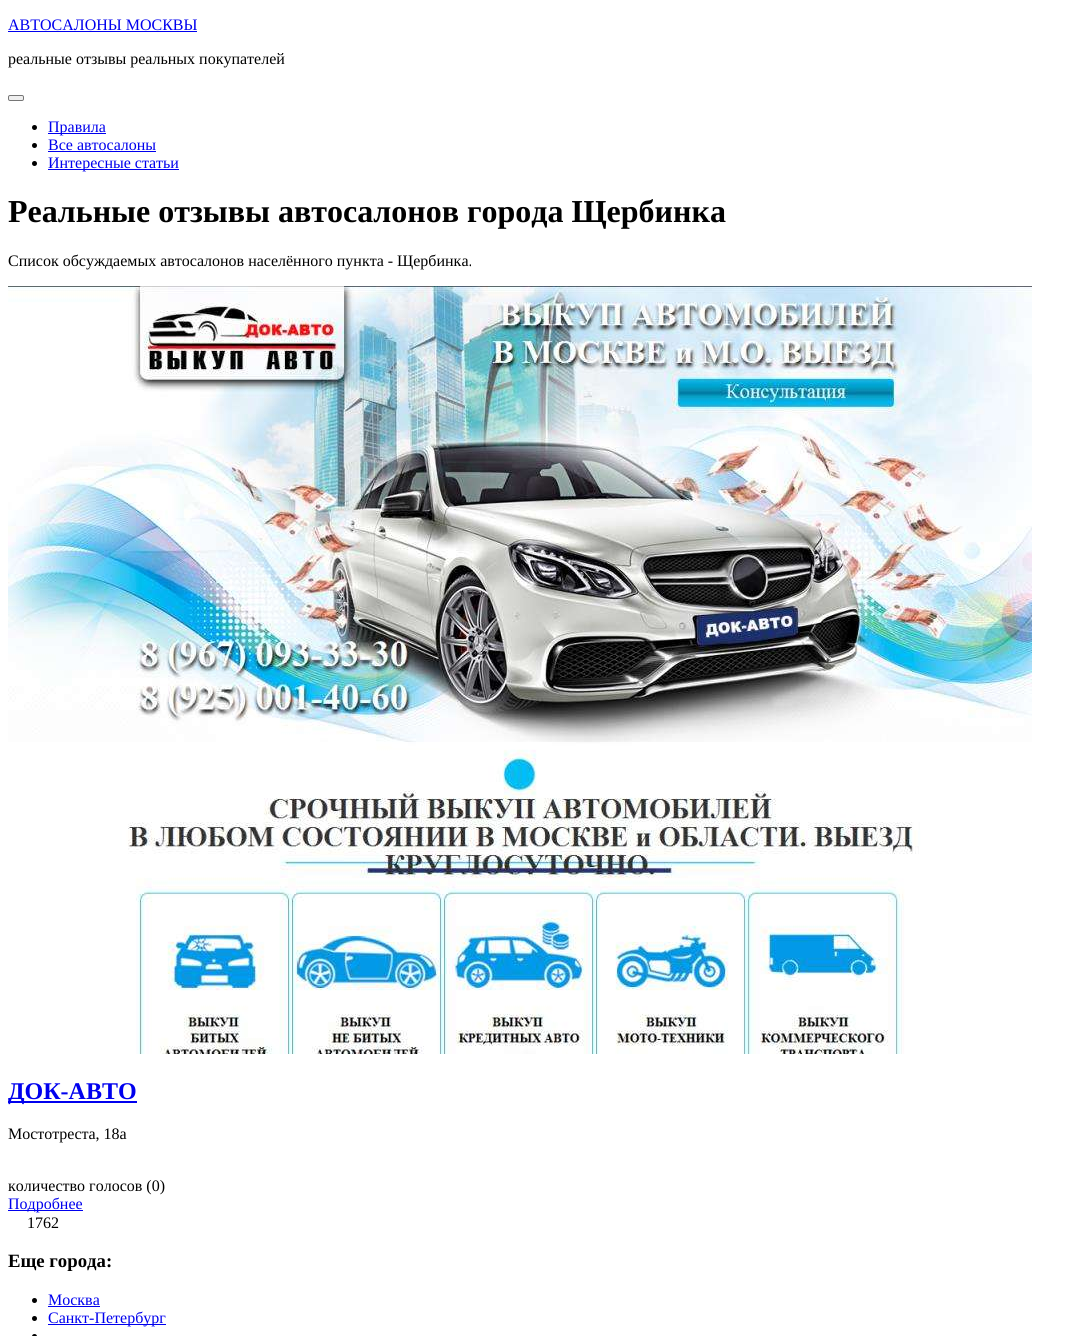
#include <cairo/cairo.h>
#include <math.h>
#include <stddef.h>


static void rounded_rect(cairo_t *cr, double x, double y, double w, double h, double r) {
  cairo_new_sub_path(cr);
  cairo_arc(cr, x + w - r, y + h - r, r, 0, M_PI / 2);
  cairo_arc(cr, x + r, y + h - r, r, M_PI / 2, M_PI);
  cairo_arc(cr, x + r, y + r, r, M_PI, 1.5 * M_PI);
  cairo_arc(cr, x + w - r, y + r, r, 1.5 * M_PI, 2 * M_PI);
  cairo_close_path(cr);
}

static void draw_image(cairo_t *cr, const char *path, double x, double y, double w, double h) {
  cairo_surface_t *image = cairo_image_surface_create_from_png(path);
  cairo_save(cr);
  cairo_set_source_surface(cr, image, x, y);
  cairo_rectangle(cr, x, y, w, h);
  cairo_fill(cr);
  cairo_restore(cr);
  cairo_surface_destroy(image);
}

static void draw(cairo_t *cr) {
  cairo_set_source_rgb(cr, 1, 1, 1);
  cairo_paint(cr);
  cairo_set_source_rgb(cr, 0, 0, 238 / 255.0);
  cairo_rectangle(cr, 8, 31, 189, 1);
  cairo_fill(cr);
  cairo_set_source_rgb(cr, 239 / 255.0, 239 / 255.0, 239 / 255.0);
  rounded_rect(cr, 8.5, 95.5, 15, 5, 1.5);
  cairo_fill_preserve(cr);
  cairo_set_source_rgb(cr, 118 / 255.0, 118 / 255.0, 118 / 255.0);
  cairo_set_line_width(cr, 1);
  cairo_stroke(cr);
  cairo_set_source_rgb(cr, 0, 0, 0);
  cairo_arc(cr, 34.5, 127.5, 2.5, 0, 2 * M_PI);
  cairo_fill(cr);
  cairo_set_source_rgb(cr, 0, 0, 238 / 255.0);
  cairo_rectangle(cr, 48, 133, 58, 1);
  cairo_fill(cr);
  cairo_set_source_rgb(cr, 0, 0, 0);
  cairo_arc(cr, 34.5, 145.5, 2.5, 0, 2 * M_PI);
  cairo_fill(cr);
  cairo_set_source_rgb(cr, 0, 0, 238 / 255.0);
  cairo_rectangle(cr, 48, 151, 108, 1);
  cairo_fill(cr);
  cairo_set_source_rgb(cr, 0, 0, 0);
  cairo_arc(cr, 34.5, 163.5, 2.5, 0, 2 * M_PI);
  cairo_fill(cr);
  cairo_set_source_rgb(cr, 0, 0, 238 / 255.0);
  cairo_rectangle(cr, 48, 169, 131, 1);
  cairo_fill(cr);
  draw_image(cr, "images/1.png", 8, 286, 1024, 768);
  cairo_rectangle(cr, 8, 1101, 129, 2);
  cairo_fill(cr);
  cairo_rectangle(cr, 8, 1210, 75, 1);
  cairo_fill(cr);
  cairo_set_source_rgb(cr, 0, 0, 0);
  cairo_arc(cr, 34.5, 1300.5, 2.5, 0, 2 * M_PI);
  cairo_fill(cr);
  cairo_set_source_rgb(cr, 0, 0, 238 / 255.0);
  cairo_rectangle(cr, 48, 1306, 52, 1);
  cairo_fill(cr);
  cairo_set_source_rgb(cr, 0, 0, 0);
  cairo_arc(cr, 34.5, 1318.5, 2.5, 0, 2 * M_PI);
  cairo_fill(cr);
  cairo_set_source_rgb(cr, 0, 0, 238 / 255.0);
  cairo_rectangle(cr, 48, 1324, 118, 1);
  cairo_fill(cr);
  cairo_set_source_rgb(cr, 0, 0, 0);
  cairo_arc(cr, 34.5, 1336.5, 2.5, 0, 2 * M_PI);
  cairo_fill(cr);
  cairo_select_font_face(cr, "Liberation Serif", CAIRO_FONT_SLANT_NORMAL, CAIRO_FONT_WEIGHT_NORMAL);
  cairo_set_font_size(cr, 16);
  cairo_set_source_rgb(cr, 0, 0, 238 / 255.0);
  cairo_move_to(cr, 8, 30);
  cairo_show_text(cr, "АВТОСАЛОНЫ МОСКВЫ");
  cairo_set_source_rgb(cr, 0, 0, 0);
  cairo_move_to(cr, 8, 64);
  cairo_show_text(cr, "реальные отзывы реальных покупателей");
  cairo_set_source_rgb(cr, 0, 0, 238 / 255.0);
  cairo_move_to(cr, 48, 132);
  cairo_show_text(cr, "Правила");
  cairo_move_to(cr, 48, 150);
  cairo_show_text(cr, "Все автосалоны");
  cairo_move_to(cr, 48, 168);
  cairo_show_text(cr, "Интересные статьи");
  cairo_select_font_face(cr, "Liberation Serif", CAIRO_FONT_SLANT_NORMAL, CAIRO_FONT_WEIGHT_BOLD);
  cairo_set_font_size(cr, 32);
  cairo_set_source_rgb(cr, 0, 0, 0);
  cairo_move_to(cr, 8, 222);
  cairo_show_text(cr, "Реальные отзывы автосалонов города Щербинка");
  cairo_select_font_face(cr, "Liberation Serif", CAIRO_FONT_SLANT_NORMAL, CAIRO_FONT_WEIGHT_NORMAL);
  cairo_set_font_size(cr, 16);
  cairo_move_to(cr, 8, 266);
  cairo_show_text(cr, "Список обсуждаемых автосалонов населённого пункта - Щербинка.");
  cairo_select_font_face(cr, "Liberation Serif", CAIRO_FONT_SLANT_NORMAL, CAIRO_FONT_WEIGHT_BOLD);
  cairo_set_font_size(cr, 24);
  cairo_set_source_rgb(cr, 0, 0, 238 / 255.0);
  cairo_move_to(cr, 8, 1099);
  cairo_show_text(cr, "ДОК-АВТО");
  cairo_select_font_face(cr, "Liberation Serif", CAIRO_FONT_SLANT_NORMAL, CAIRO_FONT_WEIGHT_NORMAL);
  cairo_set_font_size(cr, 16);
  cairo_set_source_rgb(cr, 0, 0, 0);
  cairo_move_to(cr, 8, 1139);
  cairo_show_text(cr, "Мостотреста, 18а");
  cairo_move_to(cr, 8, 1191);
  cairo_show_text(cr, "количество голосов (0)");
  cairo_set_source_rgb(cr, 0, 0, 238 / 255.0);
  cairo_move_to(cr, 8, 1209);
  cairo_show_text(cr, "Подробнее");
  cairo_set_source_rgb(cr, 0, 0, 0);
  cairo_move_to(cr, 27, 1228);
  cairo_show_text(cr, "1762");
  cairo_select_font_face(cr, "Liberation Serif", CAIRO_FONT_SLANT_NORMAL, CAIRO_FONT_WEIGHT_BOLD);
  cairo_set_font_size(cr, 18.75);
  cairo_move_to(cr, 8, 1267);
  cairo_show_text(cr, "Еще города:");
  cairo_select_font_face(cr, "Liberation Serif", CAIRO_FONT_SLANT_NORMAL, CAIRO_FONT_WEIGHT_NORMAL);
  cairo_set_font_size(cr, 16);
  cairo_set_source_rgb(cr, 0, 0, 238 / 255.0);
  cairo_move_to(cr, 48, 1305);
  cairo_show_text(cr, "Москва");
  cairo_move_to(cr, 48, 1323);
  cairo_show_text(cr, "Санкт-Петербург");
}

int main(void) {
  cairo_surface_t *surface = cairo_image_surface_create(CAIRO_FORMAT_RGB24, 1082, 1336);
  cairo_t *cr = cairo_create(surface);
  cairo_font_options_t *options = cairo_font_options_create();
  cairo_font_options_set_hint_metrics(options, CAIRO_HINT_METRICS_OFF);
  cairo_font_options_set_hint_style(options, CAIRO_HINT_STYLE_NONE);
  cairo_set_font_options(cr, options);
  cairo_set_miter_limit(cr, 4);
  draw(cr);
  cairo_surface_write_to_png(surface, "out.png");
  cairo_font_options_destroy(options);
  cairo_destroy(cr);
  cairo_surface_destroy(surface);
  return 0;
}
